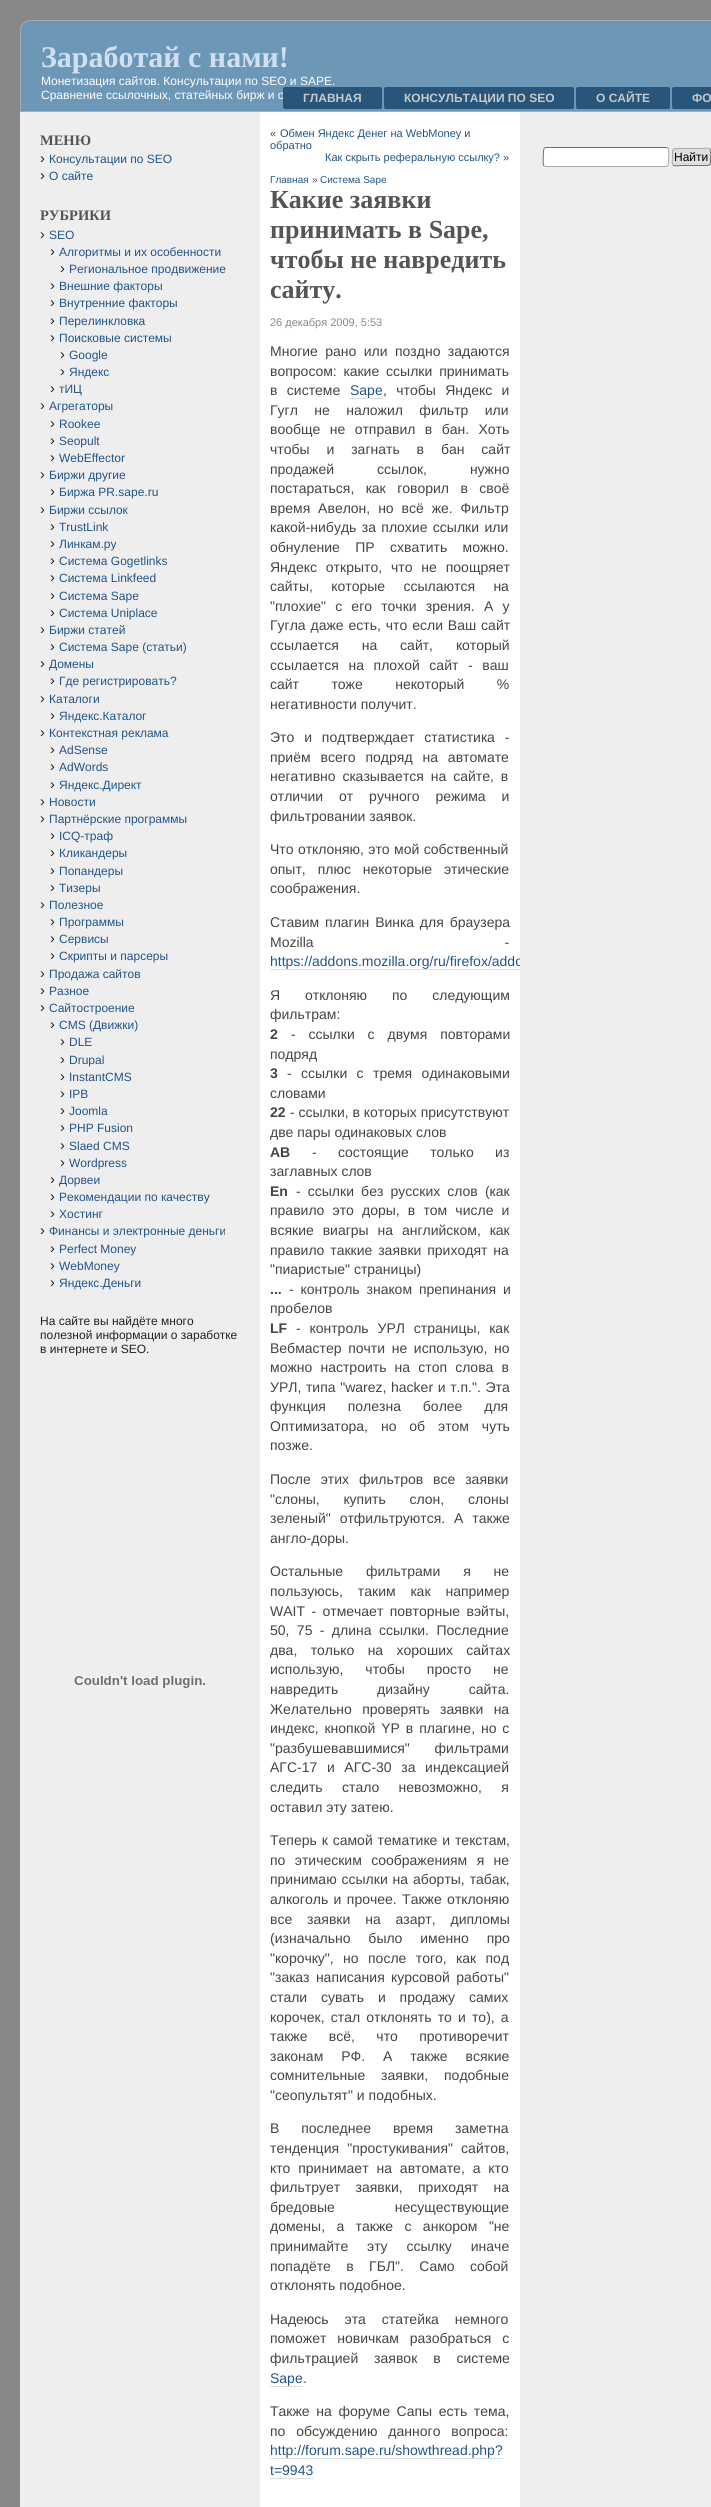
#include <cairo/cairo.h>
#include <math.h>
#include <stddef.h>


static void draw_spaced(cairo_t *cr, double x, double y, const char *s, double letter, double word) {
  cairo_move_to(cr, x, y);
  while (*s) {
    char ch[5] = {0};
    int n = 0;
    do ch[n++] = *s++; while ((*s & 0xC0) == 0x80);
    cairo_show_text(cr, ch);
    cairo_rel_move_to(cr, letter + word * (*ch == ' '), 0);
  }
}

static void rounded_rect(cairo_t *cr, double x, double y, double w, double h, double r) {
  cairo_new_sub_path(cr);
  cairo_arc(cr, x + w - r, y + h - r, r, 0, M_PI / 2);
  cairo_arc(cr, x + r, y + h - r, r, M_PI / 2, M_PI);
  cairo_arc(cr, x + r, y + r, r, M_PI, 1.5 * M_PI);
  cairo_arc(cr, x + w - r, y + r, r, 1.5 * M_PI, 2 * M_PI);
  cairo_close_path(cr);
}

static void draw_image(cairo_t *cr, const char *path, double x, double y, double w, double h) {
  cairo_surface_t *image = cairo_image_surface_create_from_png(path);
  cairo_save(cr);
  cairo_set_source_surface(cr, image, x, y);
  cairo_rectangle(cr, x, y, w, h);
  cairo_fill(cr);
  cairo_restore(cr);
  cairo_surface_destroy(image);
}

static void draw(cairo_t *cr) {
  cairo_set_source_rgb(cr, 136 / 255.0, 136 / 255.0, 136 / 255.0);
  cairo_paint(cr);
  cairo_set_source_rgb(cr, 109 / 255.0, 151 / 255.0, 183 / 255.0);
  cairo_new_path(cr);
  cairo_move_to(cr, 30, 20.5);
  cairo_line_to(cr, 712, 20.5);
  cairo_curve_to(cr, 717, 20.5, 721.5, 25, 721.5, 30);
  cairo_line_to(cr, 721.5, 111.5);
  cairo_line_to(cr, 20.5, 111.5);
  cairo_line_to(cr, 20.5, 30);
  cairo_curve_to(cr, 20.5, 25, 25, 20.5, 30, 20.5);
  cairo_close_path(cr);
  cairo_fill_preserve(cr);
  cairo_set_source_rgb(cr, 170 / 255.0, 170 / 255.0, 170 / 255.0);
  cairo_set_line_width(cr, 1);
  cairo_stroke(cr);
  cairo_set_source_rgb(cr, 39 / 255.0, 86 / 255.0, 122 / 255.0);
  rounded_rect(cr, 384, 87, 190, 22, 2);
  cairo_fill(cr);
  rounded_rect(cr, 576, 87, 94, 22, 2);
  cairo_fill(cr);
  rounded_rect(cr, 672, 87, 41, 22, 2);
  cairo_fill(cr);
  cairo_set_source_rgb(cr, 1, 1, 1);
  cairo_rectangle(cr, 260, 112, 260, 2395);
  cairo_fill(cr);
  cairo_set_source_rgb(cr, 238 / 255.0, 238 / 255.0, 238 / 255.0);
  cairo_rectangle(cr, 520, 112, 191, 2395);
  cairo_fill(cr);
  cairo_rectangle(cr, 20, 112, 240, 2395);
  cairo_fill(cr);
  draw_image(cr, "images/1.png", 74, 1676, 131, 12);
  cairo_set_source_rgb(cr, 221 / 255.0, 221 / 255.0, 221 / 255.0);
  cairo_rectangle(cr, 350, 398, 33, 1);
  cairo_fill(cr);
  cairo_rectangle(cr, 270, 969, 250, 1);
  cairo_fill(cr);
  cairo_rectangle(cr, 270, 2386, 33, 1);
  cairo_fill(cr);
  cairo_rectangle(cr, 270, 2458, 233, 1);
  cairo_fill(cr);
  cairo_rectangle(cr, 270, 2478, 44, 1);
  cairo_fill(cr);
  cairo_set_source_rgb(cr, 1, 1, 1);
  rounded_rect(cr, 543, 147, 126, 20, 3);
  cairo_fill(cr);
  cairo_new_path(cr);
  cairo_move_to(cr, 668, 148);
  cairo_curve_to(cr, 669.5, 150, 668.5, 159, 668.5, 161.5);
  cairo_curve_to(cr, 668.5, 163.5, 668.5, 166.5, 666, 166.5);
  cairo_line_to(cr, 546, 166.5);
  cairo_line_to(cr, 544, 166);
  cairo_set_source_rgb(cr, 170 / 255.0, 170 / 255.0, 170 / 255.0);
  cairo_stroke(cr);
  cairo_new_path(cr);
  cairo_move_to(cr, 544, 166);
  cairo_curve_to(cr, 542.5, 164, 543.5, 155, 543.5, 152.5);
  cairo_curve_to(cr, 543.5, 150.5, 543.5, 147.5, 546, 147.5);
  cairo_line_to(cr, 666, 147.5);
  cairo_line_to(cr, 668, 148);
  cairo_set_source_rgb(cr, 113 / 255.0, 113 / 255.0, 113 / 255.0);
  cairo_stroke(cr);
  cairo_set_source_rgb(cr, 221 / 255.0, 221 / 255.0, 221 / 255.0);
  rounded_rect(cr, 672, 148, 39, 18, 3);
  cairo_fill(cr);
  cairo_new_path(cr);
  cairo_move_to(cr, 710, 149);
  cairo_curve_to(cr, 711.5, 150.5, 710.5, 155, 710.5, 157);
  cairo_curve_to(cr, 710.5, 166, 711.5, 165.5, 702.5, 165.5);
  cairo_line_to(cr, 680.5, 165.5);
  cairo_curve_to(cr, 679.5, 165.5, 675, 166.5, 673, 165);
  cairo_set_source_rgb(cr, 113 / 255.0, 113 / 255.0, 113 / 255.0);
  cairo_stroke(cr);
  cairo_new_path(cr);
  cairo_move_to(cr, 673, 165);
  cairo_curve_to(cr, 671.5, 163.5, 672.5, 159, 672.5, 157);
  cairo_curve_to(cr, 672.5, 148, 671.5, 148.5, 680.5, 148.5);
  cairo_line_to(cr, 702.5, 148.5);
  cairo_curve_to(cr, 703.5, 148.5, 708, 147.5, 710, 149);
  cairo_set_source_rgb(cr, 170 / 255.0, 170 / 255.0, 170 / 255.0);
  cairo_stroke(cr);
  cairo_select_font_face(cr, "Liberation Serif", CAIRO_FONT_SLANT_NORMAL, CAIRO_FONT_WEIGHT_BOLD);
  cairo_set_font_size(cr, 30);
  cairo_set_source_rgb(cr, 208 / 255.0, 224 / 255.0, 240 / 255.0);
  cairo_move_to(cr, 41, 67);
  cairo_show_text(cr, "Заработай с нами!");
  cairo_select_font_face(cr, "Liberation Sans", CAIRO_FONT_SLANT_NORMAL, CAIRO_FONT_WEIGHT_NORMAL);
  cairo_set_font_size(cr, 12);
  cairo_set_source_rgb(cr, 1, 1, 1);
  cairo_move_to(cr, 41, 85);
  cairo_show_text(cr, "Монетизация сайтов. Консультации по SEO и SAPE.");
  cairo_move_to(cr, 41, 99);
  cairo_show_text(cr, "Сравнение ссылочных, статейных бирж и с");
  cairo_set_source_rgb(cr, 39 / 255.0, 86 / 255.0, 122 / 255.0);
  rounded_rect(cr, 283, 87, 99, 22, 2);
  cairo_fill(cr);
  cairo_select_font_face(cr, "Liberation Sans", CAIRO_FONT_SLANT_NORMAL, CAIRO_FONT_WEIGHT_BOLD);
  cairo_set_source_rgb(cr, 198 / 255.0, 200 / 255.0, 201 / 255.0);
  cairo_move_to(cr, 303, 102);
  cairo_show_text(cr, "ГЛАВНАЯ");
  cairo_move_to(cr, 404, 102);
  cairo_show_text(cr, "КОНСУЛЬТАЦИИ ПО SEO");
  cairo_move_to(cr, 596, 102);
  cairo_show_text(cr, "О САЙТЕ");
  cairo_move_to(cr, 692, 102);
  cairo_show_text(cr, "ФО");
  cairo_select_font_face(cr, "Liberation Serif", CAIRO_FONT_SLANT_NORMAL, CAIRO_FONT_WEIGHT_BOLD);
  cairo_set_font_size(cr, 14.5);
  cairo_set_source_rgb(cr, 85 / 255.0, 85 / 255.0, 85 / 255.0);
  cairo_move_to(cr, 40, 145);
  cairo_show_text(cr, "МЕНЮ");
  cairo_select_font_face(cr, "Liberation Sans", CAIRO_FONT_SLANT_NORMAL, CAIRO_FONT_WEIGHT_NORMAL);
  cairo_set_source_rgb(cr, 34 / 255.0, 34 / 255.0, 34 / 255.0);
  cairo_move_to(cr, 40, 163);
  cairo_show_text(cr, "›");
  cairo_set_font_size(cr, 12);
  cairo_set_source_rgb(cr, 34 / 255.0, 85 / 255.0, 136 / 255.0);
  cairo_move_to(cr, 49, 163);
  cairo_show_text(cr, "Консультации по SEO");
  cairo_set_font_size(cr, 14.5);
  cairo_set_source_rgb(cr, 34 / 255.0, 34 / 255.0, 34 / 255.0);
  cairo_move_to(cr, 40, 180);
  cairo_show_text(cr, "›");
  cairo_set_font_size(cr, 12);
  cairo_set_source_rgb(cr, 34 / 255.0, 85 / 255.0, 136 / 255.0);
  cairo_move_to(cr, 49, 180);
  cairo_show_text(cr, "О сайте");
  cairo_select_font_face(cr, "Liberation Serif", CAIRO_FONT_SLANT_NORMAL, CAIRO_FONT_WEIGHT_BOLD);
  cairo_set_font_size(cr, 14.5);
  cairo_set_source_rgb(cr, 85 / 255.0, 85 / 255.0, 85 / 255.0);
  cairo_move_to(cr, 40, 220);
  cairo_show_text(cr, "РУБРИКИ");
  cairo_select_font_face(cr, "Liberation Sans", CAIRO_FONT_SLANT_NORMAL, CAIRO_FONT_WEIGHT_NORMAL);
  cairo_set_source_rgb(cr, 34 / 255.0, 34 / 255.0, 34 / 255.0);
  cairo_move_to(cr, 40, 239);
  cairo_show_text(cr, "›");
  cairo_set_font_size(cr, 12);
  cairo_set_source_rgb(cr, 34 / 255.0, 85 / 255.0, 136 / 255.0);
  cairo_move_to(cr, 49, 239);
  cairo_show_text(cr, "SEO");
  cairo_set_font_size(cr, 14.5);
  cairo_set_source_rgb(cr, 34 / 255.0, 34 / 255.0, 34 / 255.0);
  cairo_move_to(cr, 50, 256);
  cairo_show_text(cr, "›");
  cairo_set_font_size(cr, 12);
  cairo_set_source_rgb(cr, 34 / 255.0, 85 / 255.0, 136 / 255.0);
  cairo_move_to(cr, 59, 256);
  cairo_show_text(cr, "Алгоритмы и их особенности");
  cairo_set_font_size(cr, 14.5);
  cairo_set_source_rgb(cr, 34 / 255.0, 34 / 255.0, 34 / 255.0);
  cairo_move_to(cr, 60, 273);
  cairo_show_text(cr, "›");
  cairo_set_font_size(cr, 12);
  cairo_set_source_rgb(cr, 34 / 255.0, 85 / 255.0, 136 / 255.0);
  cairo_move_to(cr, 69, 273);
  cairo_show_text(cr, "Региональное продвижение");
  cairo_set_font_size(cr, 14.5);
  cairo_set_source_rgb(cr, 34 / 255.0, 34 / 255.0, 34 / 255.0);
  cairo_move_to(cr, 50, 290);
  cairo_show_text(cr, "›");
  cairo_set_font_size(cr, 12);
  cairo_set_source_rgb(cr, 34 / 255.0, 85 / 255.0, 136 / 255.0);
  cairo_move_to(cr, 59, 290);
  cairo_show_text(cr, "Внешние факторы");
  cairo_set_font_size(cr, 14.5);
  cairo_set_source_rgb(cr, 34 / 255.0, 34 / 255.0, 34 / 255.0);
  cairo_move_to(cr, 50, 307);
  cairo_show_text(cr, "›");
  cairo_set_font_size(cr, 12);
  cairo_set_source_rgb(cr, 34 / 255.0, 85 / 255.0, 136 / 255.0);
  cairo_move_to(cr, 59, 307);
  cairo_show_text(cr, "Внутренние факторы");
  cairo_set_font_size(cr, 14.5);
  cairo_set_source_rgb(cr, 34 / 255.0, 34 / 255.0, 34 / 255.0);
  cairo_move_to(cr, 50, 325);
  cairo_show_text(cr, "›");
  cairo_set_font_size(cr, 12);
  cairo_set_source_rgb(cr, 34 / 255.0, 85 / 255.0, 136 / 255.0);
  cairo_move_to(cr, 59, 325);
  cairo_show_text(cr, "Перелинкловка");
  cairo_set_font_size(cr, 14.5);
  cairo_set_source_rgb(cr, 34 / 255.0, 34 / 255.0, 34 / 255.0);
  cairo_move_to(cr, 50, 342);
  cairo_show_text(cr, "›");
  cairo_set_font_size(cr, 12);
  cairo_set_source_rgb(cr, 34 / 255.0, 85 / 255.0, 136 / 255.0);
  cairo_move_to(cr, 59, 342);
  cairo_show_text(cr, "Поисковые системы");
  cairo_set_font_size(cr, 14.5);
  cairo_set_source_rgb(cr, 34 / 255.0, 34 / 255.0, 34 / 255.0);
  cairo_move_to(cr, 60, 359);
  cairo_show_text(cr, "›");
  cairo_set_font_size(cr, 12);
  cairo_set_source_rgb(cr, 34 / 255.0, 85 / 255.0, 136 / 255.0);
  cairo_move_to(cr, 69, 359);
  cairo_show_text(cr, "Google");
  cairo_set_font_size(cr, 14.5);
  cairo_set_source_rgb(cr, 34 / 255.0, 34 / 255.0, 34 / 255.0);
  cairo_move_to(cr, 60, 376);
  cairo_show_text(cr, "›");
  cairo_set_font_size(cr, 12);
  cairo_set_source_rgb(cr, 34 / 255.0, 85 / 255.0, 136 / 255.0);
  cairo_move_to(cr, 69, 376);
  cairo_show_text(cr, "Яндекс");
  cairo_set_font_size(cr, 14.5);
  cairo_set_source_rgb(cr, 34 / 255.0, 34 / 255.0, 34 / 255.0);
  cairo_move_to(cr, 50, 393);
  cairo_show_text(cr, "›");
  cairo_set_font_size(cr, 12);
  cairo_set_source_rgb(cr, 34 / 255.0, 85 / 255.0, 136 / 255.0);
  cairo_move_to(cr, 59, 393);
  cairo_show_text(cr, "тИЦ");
  cairo_set_font_size(cr, 14.5);
  cairo_set_source_rgb(cr, 34 / 255.0, 34 / 255.0, 34 / 255.0);
  cairo_move_to(cr, 40, 410);
  cairo_show_text(cr, "›");
  cairo_set_font_size(cr, 12);
  cairo_set_source_rgb(cr, 34 / 255.0, 85 / 255.0, 136 / 255.0);
  cairo_move_to(cr, 49, 410);
  cairo_show_text(cr, "Агрегаторы");
  cairo_set_font_size(cr, 14.5);
  cairo_set_source_rgb(cr, 34 / 255.0, 34 / 255.0, 34 / 255.0);
  cairo_move_to(cr, 50, 428);
  cairo_show_text(cr, "›");
  cairo_set_font_size(cr, 12);
  cairo_set_source_rgb(cr, 34 / 255.0, 85 / 255.0, 136 / 255.0);
  cairo_move_to(cr, 59, 428);
  cairo_show_text(cr, "Rookee");
  cairo_set_font_size(cr, 14.5);
  cairo_set_source_rgb(cr, 34 / 255.0, 34 / 255.0, 34 / 255.0);
  cairo_move_to(cr, 50, 445);
  cairo_show_text(cr, "›");
  cairo_set_font_size(cr, 12);
  cairo_set_source_rgb(cr, 34 / 255.0, 85 / 255.0, 136 / 255.0);
  cairo_move_to(cr, 59, 445);
  cairo_show_text(cr, "Seopult");
  cairo_set_font_size(cr, 14.5);
  cairo_set_source_rgb(cr, 34 / 255.0, 34 / 255.0, 34 / 255.0);
  cairo_move_to(cr, 50, 462);
  cairo_show_text(cr, "›");
  cairo_set_font_size(cr, 12);
  cairo_set_source_rgb(cr, 34 / 255.0, 85 / 255.0, 136 / 255.0);
  cairo_move_to(cr, 59, 462);
  cairo_show_text(cr, "WebEffector");
  cairo_set_font_size(cr, 14.5);
  cairo_set_source_rgb(cr, 34 / 255.0, 34 / 255.0, 34 / 255.0);
  cairo_move_to(cr, 40, 479);
  cairo_show_text(cr, "›");
  cairo_set_font_size(cr, 12);
  cairo_set_source_rgb(cr, 34 / 255.0, 85 / 255.0, 136 / 255.0);
  cairo_move_to(cr, 49, 479);
  cairo_show_text(cr, "Биржи другие");
  cairo_set_font_size(cr, 14.5);
  cairo_set_source_rgb(cr, 34 / 255.0, 34 / 255.0, 34 / 255.0);
  cairo_move_to(cr, 50, 496);
  cairo_show_text(cr, "›");
  cairo_set_font_size(cr, 12);
  cairo_set_source_rgb(cr, 34 / 255.0, 85 / 255.0, 136 / 255.0);
  cairo_move_to(cr, 59, 496);
  cairo_show_text(cr, "Биржа PR.sape.ru");
  cairo_set_font_size(cr, 14.5);
  cairo_set_source_rgb(cr, 34 / 255.0, 34 / 255.0, 34 / 255.0);
  cairo_move_to(cr, 40, 514);
  cairo_show_text(cr, "›");
  cairo_set_font_size(cr, 12);
  cairo_set_source_rgb(cr, 34 / 255.0, 85 / 255.0, 136 / 255.0);
  cairo_move_to(cr, 49, 514);
  cairo_show_text(cr, "Биржи ссылок");
  cairo_set_font_size(cr, 14.5);
  cairo_set_source_rgb(cr, 34 / 255.0, 34 / 255.0, 34 / 255.0);
  cairo_move_to(cr, 50, 531);
  cairo_show_text(cr, "›");
  cairo_set_font_size(cr, 12);
  cairo_set_source_rgb(cr, 34 / 255.0, 85 / 255.0, 136 / 255.0);
  cairo_move_to(cr, 59, 531);
  cairo_show_text(cr, "TrustLink");
  cairo_set_font_size(cr, 14.5);
  cairo_set_source_rgb(cr, 34 / 255.0, 34 / 255.0, 34 / 255.0);
  cairo_move_to(cr, 50, 548);
  cairo_show_text(cr, "›");
  cairo_set_font_size(cr, 12);
  cairo_set_source_rgb(cr, 34 / 255.0, 85 / 255.0, 136 / 255.0);
  cairo_move_to(cr, 59, 548);
  cairo_show_text(cr, "Линкам.ру");
  cairo_set_font_size(cr, 14.5);
  cairo_set_source_rgb(cr, 34 / 255.0, 34 / 255.0, 34 / 255.0);
  cairo_move_to(cr, 50, 565);
  cairo_show_text(cr, "›");
  cairo_set_font_size(cr, 12);
  cairo_set_source_rgb(cr, 34 / 255.0, 85 / 255.0, 136 / 255.0);
  cairo_move_to(cr, 59, 565);
  cairo_show_text(cr, "Система Gogetlinks");
  cairo_set_font_size(cr, 14.5);
  cairo_set_source_rgb(cr, 34 / 255.0, 34 / 255.0, 34 / 255.0);
  cairo_move_to(cr, 50, 582);
  cairo_show_text(cr, "›");
  cairo_set_font_size(cr, 12);
  cairo_set_source_rgb(cr, 34 / 255.0, 85 / 255.0, 136 / 255.0);
  cairo_move_to(cr, 59, 582);
  cairo_show_text(cr, "Система Linkfeed");
  cairo_set_font_size(cr, 14.5);
  cairo_set_source_rgb(cr, 34 / 255.0, 34 / 255.0, 34 / 255.0);
  cairo_move_to(cr, 50, 600);
  cairo_show_text(cr, "›");
  cairo_set_font_size(cr, 12);
  cairo_set_source_rgb(cr, 34 / 255.0, 85 / 255.0, 136 / 255.0);
  cairo_move_to(cr, 59, 600);
  cairo_show_text(cr, "Система Sape");
  cairo_set_font_size(cr, 14.5);
  cairo_set_source_rgb(cr, 34 / 255.0, 34 / 255.0, 34 / 255.0);
  cairo_move_to(cr, 50, 617);
  cairo_show_text(cr, "›");
  cairo_set_font_size(cr, 12);
  cairo_set_source_rgb(cr, 34 / 255.0, 85 / 255.0, 136 / 255.0);
  cairo_move_to(cr, 59, 617);
  cairo_show_text(cr, "Система Uniplace");
  cairo_set_font_size(cr, 14.5);
  cairo_set_source_rgb(cr, 34 / 255.0, 34 / 255.0, 34 / 255.0);
  cairo_move_to(cr, 40, 634);
  cairo_show_text(cr, "›");
  cairo_set_font_size(cr, 12);
  cairo_set_source_rgb(cr, 34 / 255.0, 85 / 255.0, 136 / 255.0);
  cairo_move_to(cr, 49, 634);
  cairo_show_text(cr, "Биржи статей");
  cairo_set_font_size(cr, 14.5);
  cairo_set_source_rgb(cr, 34 / 255.0, 34 / 255.0, 34 / 255.0);
  cairo_move_to(cr, 50, 651);
  cairo_show_text(cr, "›");
  cairo_set_font_size(cr, 12);
  cairo_set_source_rgb(cr, 34 / 255.0, 85 / 255.0, 136 / 255.0);
  cairo_move_to(cr, 59, 651);
  cairo_show_text(cr, "Система Sape (статьи)");
  cairo_set_font_size(cr, 14.5);
  cairo_set_source_rgb(cr, 34 / 255.0, 34 / 255.0, 34 / 255.0);
  cairo_move_to(cr, 40, 668);
  cairo_show_text(cr, "›");
  cairo_set_font_size(cr, 12);
  cairo_set_source_rgb(cr, 34 / 255.0, 85 / 255.0, 136 / 255.0);
  cairo_move_to(cr, 49, 668);
  cairo_show_text(cr, "Домены");
  cairo_set_font_size(cr, 14.5);
  cairo_set_source_rgb(cr, 34 / 255.0, 34 / 255.0, 34 / 255.0);
  cairo_move_to(cr, 50, 685);
  cairo_show_text(cr, "›");
  cairo_set_font_size(cr, 12);
  cairo_set_source_rgb(cr, 34 / 255.0, 85 / 255.0, 136 / 255.0);
  cairo_move_to(cr, 59, 685);
  cairo_show_text(cr, "Где регистрировать?");
  cairo_set_font_size(cr, 14.5);
  cairo_set_source_rgb(cr, 34 / 255.0, 34 / 255.0, 34 / 255.0);
  cairo_move_to(cr, 40, 703);
  cairo_show_text(cr, "›");
  cairo_set_font_size(cr, 12);
  cairo_set_source_rgb(cr, 34 / 255.0, 85 / 255.0, 136 / 255.0);
  cairo_move_to(cr, 49, 703);
  cairo_show_text(cr, "Каталоги");
  cairo_set_font_size(cr, 14.5);
  cairo_set_source_rgb(cr, 34 / 255.0, 34 / 255.0, 34 / 255.0);
  cairo_move_to(cr, 50, 720);
  cairo_show_text(cr, "›");
  cairo_set_font_size(cr, 12);
  cairo_set_source_rgb(cr, 34 / 255.0, 85 / 255.0, 136 / 255.0);
  cairo_move_to(cr, 59, 720);
  cairo_show_text(cr, "Яндекс.Каталог");
  cairo_set_font_size(cr, 14.5);
  cairo_set_source_rgb(cr, 34 / 255.0, 34 / 255.0, 34 / 255.0);
  cairo_move_to(cr, 40, 737);
  cairo_show_text(cr, "›");
  cairo_set_font_size(cr, 12);
  cairo_set_source_rgb(cr, 34 / 255.0, 85 / 255.0, 136 / 255.0);
  cairo_move_to(cr, 49, 737);
  cairo_show_text(cr, "Контекстная реклама");
  cairo_set_font_size(cr, 14.5);
  cairo_set_source_rgb(cr, 34 / 255.0, 34 / 255.0, 34 / 255.0);
  cairo_move_to(cr, 50, 754);
  cairo_show_text(cr, "›");
  cairo_set_font_size(cr, 12);
  cairo_set_source_rgb(cr, 34 / 255.0, 85 / 255.0, 136 / 255.0);
  cairo_move_to(cr, 59, 754);
  cairo_show_text(cr, "AdSense");
  cairo_set_font_size(cr, 14.5);
  cairo_set_source_rgb(cr, 34 / 255.0, 34 / 255.0, 34 / 255.0);
  cairo_move_to(cr, 50, 771);
  cairo_show_text(cr, "›");
  cairo_set_font_size(cr, 12);
  cairo_set_source_rgb(cr, 34 / 255.0, 85 / 255.0, 136 / 255.0);
  cairo_move_to(cr, 59, 771);
  cairo_show_text(cr, "AdWords");
  cairo_set_font_size(cr, 14.5);
  cairo_set_source_rgb(cr, 34 / 255.0, 34 / 255.0, 34 / 255.0);
  cairo_move_to(cr, 50, 789);
  cairo_show_text(cr, "›");
  cairo_set_font_size(cr, 12);
  cairo_set_source_rgb(cr, 34 / 255.0, 85 / 255.0, 136 / 255.0);
  cairo_move_to(cr, 59, 789);
  cairo_show_text(cr, "Яндекс.Директ");
  cairo_set_font_size(cr, 14.5);
  cairo_set_source_rgb(cr, 34 / 255.0, 34 / 255.0, 34 / 255.0);
  cairo_move_to(cr, 40, 806);
  cairo_show_text(cr, "›");
  cairo_set_font_size(cr, 12);
  cairo_set_source_rgb(cr, 34 / 255.0, 85 / 255.0, 136 / 255.0);
  cairo_move_to(cr, 49, 806);
  cairo_show_text(cr, "Новости");
  cairo_set_font_size(cr, 14.5);
  cairo_set_source_rgb(cr, 34 / 255.0, 34 / 255.0, 34 / 255.0);
  cairo_move_to(cr, 40, 823);
  cairo_show_text(cr, "›");
  cairo_set_font_size(cr, 12);
  cairo_set_source_rgb(cr, 34 / 255.0, 85 / 255.0, 136 / 255.0);
  cairo_move_to(cr, 49, 823);
  cairo_show_text(cr, "Партнёрские программы");
  cairo_set_font_size(cr, 14.5);
  cairo_set_source_rgb(cr, 34 / 255.0, 34 / 255.0, 34 / 255.0);
  cairo_move_to(cr, 50, 840);
  cairo_show_text(cr, "›");
  cairo_set_font_size(cr, 12);
  cairo_set_source_rgb(cr, 34 / 255.0, 85 / 255.0, 136 / 255.0);
  cairo_move_to(cr, 59, 840);
  cairo_show_text(cr, "ICQ-траф");
  cairo_set_font_size(cr, 14.5);
  cairo_set_source_rgb(cr, 34 / 255.0, 34 / 255.0, 34 / 255.0);
  cairo_move_to(cr, 50, 857);
  cairo_show_text(cr, "›");
  cairo_set_font_size(cr, 12);
  cairo_set_source_rgb(cr, 34 / 255.0, 85 / 255.0, 136 / 255.0);
  cairo_move_to(cr, 59, 857);
  cairo_show_text(cr, "Кликандеры");
  cairo_set_font_size(cr, 14.5);
  cairo_set_source_rgb(cr, 34 / 255.0, 34 / 255.0, 34 / 255.0);
  cairo_move_to(cr, 50, 875);
  cairo_show_text(cr, "›");
  cairo_set_font_size(cr, 12);
  cairo_set_source_rgb(cr, 34 / 255.0, 85 / 255.0, 136 / 255.0);
  cairo_move_to(cr, 59, 875);
  cairo_show_text(cr, "Попандеры");
  cairo_set_font_size(cr, 14.5);
  cairo_set_source_rgb(cr, 34 / 255.0, 34 / 255.0, 34 / 255.0);
  cairo_move_to(cr, 50, 892);
  cairo_show_text(cr, "›");
  cairo_set_font_size(cr, 12);
  cairo_set_source_rgb(cr, 34 / 255.0, 85 / 255.0, 136 / 255.0);
  cairo_move_to(cr, 59, 892);
  cairo_show_text(cr, "Тизеры");
  cairo_set_font_size(cr, 14.5);
  cairo_set_source_rgb(cr, 34 / 255.0, 34 / 255.0, 34 / 255.0);
  cairo_move_to(cr, 40, 909);
  cairo_show_text(cr, "›");
  cairo_set_font_size(cr, 12);
  cairo_set_source_rgb(cr, 34 / 255.0, 85 / 255.0, 136 / 255.0);
  cairo_move_to(cr, 49, 909);
  cairo_show_text(cr, "Полезное");
  cairo_set_font_size(cr, 14.5);
  cairo_set_source_rgb(cr, 34 / 255.0, 34 / 255.0, 34 / 255.0);
  cairo_move_to(cr, 50, 926);
  cairo_show_text(cr, "›");
  cairo_set_font_size(cr, 12);
  cairo_set_source_rgb(cr, 34 / 255.0, 85 / 255.0, 136 / 255.0);
  cairo_move_to(cr, 59, 926);
  cairo_show_text(cr, "Программы");
  cairo_set_font_size(cr, 14.5);
  cairo_set_source_rgb(cr, 34 / 255.0, 34 / 255.0, 34 / 255.0);
  cairo_move_to(cr, 50, 943);
  cairo_show_text(cr, "›");
  cairo_set_font_size(cr, 12);
  cairo_set_source_rgb(cr, 34 / 255.0, 85 / 255.0, 136 / 255.0);
  cairo_move_to(cr, 59, 943);
  cairo_show_text(cr, "Сервисы");
  cairo_set_font_size(cr, 14.5);
  cairo_set_source_rgb(cr, 34 / 255.0, 34 / 255.0, 34 / 255.0);
  cairo_move_to(cr, 50, 960);
  cairo_show_text(cr, "›");
  cairo_set_font_size(cr, 12);
  cairo_set_source_rgb(cr, 34 / 255.0, 85 / 255.0, 136 / 255.0);
  cairo_move_to(cr, 59, 960);
  cairo_show_text(cr, "Скрипты и парсеры");
  cairo_set_font_size(cr, 14.5);
  cairo_set_source_rgb(cr, 34 / 255.0, 34 / 255.0, 34 / 255.0);
  cairo_move_to(cr, 40, 978);
  cairo_show_text(cr, "›");
  cairo_set_font_size(cr, 12);
  cairo_set_source_rgb(cr, 34 / 255.0, 85 / 255.0, 136 / 255.0);
  cairo_move_to(cr, 49, 978);
  cairo_show_text(cr, "Продажа сайтов");
  cairo_set_font_size(cr, 14.5);
  cairo_set_source_rgb(cr, 34 / 255.0, 34 / 255.0, 34 / 255.0);
  cairo_move_to(cr, 40, 995);
  cairo_show_text(cr, "›");
  cairo_set_font_size(cr, 12);
  cairo_set_source_rgb(cr, 34 / 255.0, 85 / 255.0, 136 / 255.0);
  cairo_move_to(cr, 49, 995);
  cairo_show_text(cr, "Разное");
  cairo_set_font_size(cr, 14.5);
  cairo_set_source_rgb(cr, 34 / 255.0, 34 / 255.0, 34 / 255.0);
  cairo_move_to(cr, 40, 1012);
  cairo_show_text(cr, "›");
  cairo_set_font_size(cr, 12);
  cairo_set_source_rgb(cr, 34 / 255.0, 85 / 255.0, 136 / 255.0);
  cairo_move_to(cr, 49, 1012);
  cairo_show_text(cr, "Сайтостроение");
  cairo_set_font_size(cr, 14.5);
  cairo_set_source_rgb(cr, 34 / 255.0, 34 / 255.0, 34 / 255.0);
  cairo_move_to(cr, 50, 1029);
  cairo_show_text(cr, "›");
  cairo_set_font_size(cr, 12);
  cairo_set_source_rgb(cr, 34 / 255.0, 85 / 255.0, 136 / 255.0);
  cairo_move_to(cr, 59, 1029);
  cairo_show_text(cr, "CMS (Движки)");
  cairo_set_font_size(cr, 14.5);
  cairo_set_source_rgb(cr, 34 / 255.0, 34 / 255.0, 34 / 255.0);
  cairo_move_to(cr, 60, 1046);
  cairo_show_text(cr, "›");
  cairo_set_font_size(cr, 12);
  cairo_set_source_rgb(cr, 34 / 255.0, 85 / 255.0, 136 / 255.0);
  cairo_move_to(cr, 69, 1046);
  cairo_show_text(cr, "DLE");
  cairo_set_font_size(cr, 14.5);
  cairo_set_source_rgb(cr, 34 / 255.0, 34 / 255.0, 34 / 255.0);
  cairo_move_to(cr, 60, 1064);
  cairo_show_text(cr, "›");
  cairo_set_font_size(cr, 12);
  cairo_set_source_rgb(cr, 34 / 255.0, 85 / 255.0, 136 / 255.0);
  cairo_move_to(cr, 69, 1064);
  cairo_show_text(cr, "Drupal");
  cairo_set_font_size(cr, 14.5);
  cairo_set_source_rgb(cr, 34 / 255.0, 34 / 255.0, 34 / 255.0);
  cairo_move_to(cr, 60, 1081);
  cairo_show_text(cr, "›");
  cairo_set_font_size(cr, 12);
  cairo_set_source_rgb(cr, 34 / 255.0, 85 / 255.0, 136 / 255.0);
  cairo_move_to(cr, 69, 1081);
  cairo_show_text(cr, "InstantCMS");
  cairo_set_font_size(cr, 14.5);
  cairo_set_source_rgb(cr, 34 / 255.0, 34 / 255.0, 34 / 255.0);
  cairo_move_to(cr, 60, 1098);
  cairo_show_text(cr, "›");
  cairo_set_font_size(cr, 12);
  cairo_set_source_rgb(cr, 34 / 255.0, 85 / 255.0, 136 / 255.0);
  cairo_move_to(cr, 69, 1098);
  cairo_show_text(cr, "IPB");
  cairo_set_font_size(cr, 14.5);
  cairo_set_source_rgb(cr, 34 / 255.0, 34 / 255.0, 34 / 255.0);
  cairo_move_to(cr, 60, 1115);
  cairo_show_text(cr, "›");
  cairo_set_font_size(cr, 12);
  cairo_set_source_rgb(cr, 34 / 255.0, 85 / 255.0, 136 / 255.0);
  cairo_move_to(cr, 69, 1115);
  cairo_show_text(cr, "Joomla");
  cairo_set_font_size(cr, 14.5);
  cairo_set_source_rgb(cr, 34 / 255.0, 34 / 255.0, 34 / 255.0);
  cairo_move_to(cr, 60, 1132);
  cairo_show_text(cr, "›");
  cairo_set_font_size(cr, 12);
  cairo_set_source_rgb(cr, 34 / 255.0, 85 / 255.0, 136 / 255.0);
  cairo_move_to(cr, 69, 1132);
  cairo_show_text(cr, "PHP Fusion");
  cairo_set_font_size(cr, 14.5);
  cairo_set_source_rgb(cr, 34 / 255.0, 34 / 255.0, 34 / 255.0);
  cairo_move_to(cr, 60, 1150);
  cairo_show_text(cr, "›");
  cairo_set_font_size(cr, 12);
  cairo_set_source_rgb(cr, 34 / 255.0, 85 / 255.0, 136 / 255.0);
  cairo_move_to(cr, 69, 1150);
  cairo_show_text(cr, "Slaed CMS");
  cairo_set_font_size(cr, 14.5);
  cairo_set_source_rgb(cr, 34 / 255.0, 34 / 255.0, 34 / 255.0);
  cairo_move_to(cr, 60, 1167);
  cairo_show_text(cr, "›");
  cairo_set_font_size(cr, 12);
  cairo_set_source_rgb(cr, 34 / 255.0, 85 / 255.0, 136 / 255.0);
  cairo_move_to(cr, 69, 1167);
  cairo_show_text(cr, "Wordpress");
  cairo_set_font_size(cr, 14.5);
  cairo_set_source_rgb(cr, 34 / 255.0, 34 / 255.0, 34 / 255.0);
  cairo_move_to(cr, 50, 1184);
  cairo_show_text(cr, "›");
  cairo_set_font_size(cr, 12);
  cairo_set_source_rgb(cr, 34 / 255.0, 85 / 255.0, 136 / 255.0);
  cairo_move_to(cr, 59, 1184);
  cairo_show_text(cr, "Дорвеи");
  cairo_set_font_size(cr, 14.5);
  cairo_set_source_rgb(cr, 34 / 255.0, 34 / 255.0, 34 / 255.0);
  cairo_move_to(cr, 50, 1201);
  cairo_show_text(cr, "›");
  cairo_set_font_size(cr, 12);
  cairo_set_source_rgb(cr, 34 / 255.0, 85 / 255.0, 136 / 255.0);
  cairo_move_to(cr, 59, 1201);
  cairo_show_text(cr, "Рекомендации по качеству");
  cairo_set_font_size(cr, 14.5);
  cairo_set_source_rgb(cr, 34 / 255.0, 34 / 255.0, 34 / 255.0);
  cairo_move_to(cr, 50, 1218);
  cairo_show_text(cr, "›");
  cairo_set_font_size(cr, 12);
  cairo_set_source_rgb(cr, 34 / 255.0, 85 / 255.0, 136 / 255.0);
  cairo_move_to(cr, 59, 1218);
  cairo_show_text(cr, "Хостинг");
  cairo_set_font_size(cr, 14.5);
  cairo_set_source_rgb(cr, 34 / 255.0, 34 / 255.0, 34 / 255.0);
  cairo_move_to(cr, 40, 1235);
  cairo_show_text(cr, "›");
  cairo_set_font_size(cr, 12);
  cairo_set_source_rgb(cr, 34 / 255.0, 85 / 255.0, 136 / 255.0);
  cairo_move_to(cr, 49, 1235);
  cairo_show_text(cr, "Финансы и электронные деньги");
  cairo_set_font_size(cr, 14.5);
  cairo_set_source_rgb(cr, 34 / 255.0, 34 / 255.0, 34 / 255.0);
  cairo_move_to(cr, 50, 1253);
  cairo_show_text(cr, "›");
  cairo_set_font_size(cr, 12);
  cairo_set_source_rgb(cr, 34 / 255.0, 85 / 255.0, 136 / 255.0);
  cairo_move_to(cr, 59, 1253);
  cairo_show_text(cr, "Perfect Money");
  cairo_set_font_size(cr, 14.5);
  cairo_set_source_rgb(cr, 34 / 255.0, 34 / 255.0, 34 / 255.0);
  cairo_move_to(cr, 50, 1270);
  cairo_show_text(cr, "›");
  cairo_set_font_size(cr, 12);
  cairo_set_source_rgb(cr, 34 / 255.0, 85 / 255.0, 136 / 255.0);
  cairo_move_to(cr, 59, 1270);
  cairo_show_text(cr, "WebMoney");
  cairo_set_font_size(cr, 14.5);
  cairo_set_source_rgb(cr, 34 / 255.0, 34 / 255.0, 34 / 255.0);
  cairo_move_to(cr, 50, 1287);
  cairo_show_text(cr, "›");
  cairo_set_font_size(cr, 12);
  cairo_set_source_rgb(cr, 34 / 255.0, 85 / 255.0, 136 / 255.0);
  cairo_move_to(cr, 59, 1287);
  cairo_show_text(cr, "Яндекс.Деньги");
  cairo_set_source_rgb(cr, 34 / 255.0, 34 / 255.0, 34 / 255.0);
  cairo_move_to(cr, 40, 1325);
  cairo_show_text(cr, "На сайте вы найдёте много");
  cairo_move_to(cr, 40, 1339);
  cairo_show_text(cr, "полезной информации о заработке");
  cairo_move_to(cr, 40, 1353);
  cairo_show_text(cr, "в интернете и SEO.");
  cairo_set_font_size(cr, 11);
  cairo_set_source_rgb(cr, 68 / 255.0, 68 / 255.0, 68 / 255.0);
  cairo_move_to(cr, 270, 137);
  cairo_show_text(cr, "«");
  cairo_set_source_rgb(cr, 34 / 255.0, 85 / 255.0, 136 / 255.0);
  cairo_move_to(cr, 280, 137);
  cairo_show_text(cr, "Обмен Яндекс Денег на WebMoney и");
  cairo_move_to(cr, 270, 149);
  cairo_show_text(cr, "обратно");
  cairo_move_to(cr, 325, 161);
  cairo_show_text(cr, "Как скрыть реферальную ссылку?");
  cairo_set_source_rgb(cr, 68 / 255.0, 68 / 255.0, 68 / 255.0);
  cairo_move_to(cr, 503, 161);
  cairo_show_text(cr, "»");
  cairo_set_font_size(cr, 10);
  cairo_set_source_rgb(cr, 34 / 255.0, 85 / 255.0, 136 / 255.0);
  cairo_move_to(cr, 270, 183);
  cairo_show_text(cr, "Главная");
  cairo_set_source_rgb(cr, 68 / 255.0, 68 / 255.0, 68 / 255.0);
  cairo_move_to(cr, 312, 183);
  cairo_show_text(cr, "»");
  cairo_set_source_rgb(cr, 34 / 255.0, 85 / 255.0, 136 / 255.0);
  cairo_move_to(cr, 320, 183);
  cairo_show_text(cr, "Система Sape");
  cairo_select_font_face(cr, "Liberation Serif", CAIRO_FONT_SLANT_NORMAL, CAIRO_FONT_WEIGHT_BOLD);
  cairo_set_font_size(cr, 26);
  cairo_set_source_rgb(cr, 85 / 255.0, 85 / 255.0, 85 / 255.0);
  cairo_move_to(cr, 270, 208);
  cairo_show_text(cr, "Какие заявки");
  cairo_move_to(cr, 270, 238);
  cairo_show_text(cr, "принимать в Sape,");
  cairo_move_to(cr, 270, 268);
  cairo_show_text(cr, "чтобы не навредить");
  cairo_move_to(cr, 270, 298);
  cairo_show_text(cr, "сайту.");
  cairo_select_font_face(cr, "Liberation Sans", CAIRO_FONT_SLANT_NORMAL, CAIRO_FONT_WEIGHT_NORMAL);
  cairo_set_font_size(cr, 11);
  cairo_set_source_rgb(cr, 136 / 255.0, 136 / 255.0, 136 / 255.0);
  cairo_move_to(cr, 270, 326);
  cairo_show_text(cr, "26 декабря 2009, 5:53");
  cairo_set_font_size(cr, 14);
  cairo_set_source_rgb(cr, 68 / 255.0, 68 / 255.0, 68 / 255.0);
  draw_spaced(cr, 270, 356, "Многие рано или поздно задаются", 0, 3.5);
  draw_spaced(cr, 270, 376, "вопросом: какие ссылки принимать", 0, 3);
  draw_spaced(cr, 270, 395, "в системе", 0, 5.5);
  cairo_set_source_rgb(cr, 34 / 255.0, 85 / 255.0, 136 / 255.0);
  cairo_move_to(cr, 350, 395);
  cairo_show_text(cr, "Sape");
  cairo_set_source_rgb(cr, 68 / 255.0, 68 / 255.0, 68 / 255.0);
  draw_spaced(cr, 383, 395, ", чтобы Яндекс и", 0, 5.5);
  draw_spaced(cr, 270, 415, "Гугл не наложил фильтр или", 0, 12.5);
  draw_spaced(cr, 270, 434, "вообще не отправил в бан. Хоть", 0, 5.5);
  draw_spaced(cr, 270, 454, "чтобы и загнать в бан сайт", 0, 13);
  draw_spaced(cr, 270, 474, "продажей ссылок, нужно", 0, 39);
  draw_spaced(cr, 270, 493, "постараться, как говорил в своё", 0, 7.5);
  draw_spaced(cr, 270, 513, "время Авелон, но всё же. Фильтр", 0, 4);
  draw_spaced(cr, 270, 532, "какой-нибудь за плохие ссылки или", 0, 1.5);
  draw_spaced(cr, 270, 552, "обнуление ПР схватить можно.", 0, 11.5);
  draw_spaced(cr, 270, 572, "Яндекс открыто, что не поощряет", 0, 5);
  draw_spaced(cr, 270, 591, "сайты, которые ссылаются на", 0, 14.5);
  draw_spaced(cr, 270, 611, "\"плохие\" с его точки зрения. А у", 0, 5.25);
  draw_spaced(cr, 270, 630, "Гугла даже есть, что если Ваш сайт", 0, 1);
  draw_spaced(cr, 270, 650, "ссылается на сайт, который", 0, 19);
  draw_spaced(cr, 270, 670, "ссылается на плохой сайт - ваш", 0, 5.75);
  draw_spaced(cr, 270, 689, "сайт тоже некоторый %", 0, 28.5);
  cairo_move_to(cr, 270, 709);
  cairo_show_text(cr, "негативности получит.");
  draw_spaced(cr, 270, 742, "Это и подтверждает статистика -", 0, 6);
  draw_spaced(cr, 270, 762, "приём всего подряд на автомате", 0, 6);
  draw_spaced(cr, 270, 781, "негативно сказывается на сайте, в", 0, 3);
  draw_spaced(cr, 270, 801, "отличии от ручного режима и", 0, 12);
  cairo_move_to(cr, 270, 821);
  cairo_show_text(cr, "фильтровании заявок.");
  draw_spaced(cr, 270, 854, "Что отклоняю, это мой собственный", 0, 0.5);
  draw_spaced(cr, 270, 874, "опыт, плюс некоторые этические", 0, 8);
  cairo_move_to(cr, 270, 893);
  cairo_show_text(cr, "соображения.");
  draw_spaced(cr, 270, 927, "Ставим плагин Винка для браузера", 0, 2);
  draw_spaced(cr, 270, 947, "Mozilla -", 0, 187);
  cairo_save(cr);
  cairo_rectangle(cr, 260, 112, 260, 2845);
  cairo_clip(cr);
  cairo_set_source_rgb(cr, 34 / 255.0, 85 / 255.0, 136 / 255.0);
  cairo_move_to(cr, 270, 966);
  cairo_show_text(cr, "https://addons.mozilla.org/ru/firefox/addo");
  cairo_restore(cr);
  draw_spaced(cr, 270, 1000, "Я отклоняю по следующим", 0, 21);
  cairo_move_to(cr, 270, 1019);
  cairo_show_text(cr, "фильтрам:");
  cairo_select_font_face(cr, "Liberation Sans", CAIRO_FONT_SLANT_NORMAL, CAIRO_FONT_WEIGHT_BOLD);
  cairo_move_to(cr, 270, 1039);
  cairo_show_text(cr, "2");
  cairo_select_font_face(cr, "Liberation Sans", CAIRO_FONT_SLANT_NORMAL, CAIRO_FONT_WEIGHT_NORMAL);
  draw_spaced(cr, 291, 1039, "- ссылки с двумя повторами", 0, 9);
  cairo_move_to(cr, 270, 1059);
  cairo_show_text(cr, "подряд");
  cairo_select_font_face(cr, "Liberation Sans", CAIRO_FONT_SLANT_NORMAL, CAIRO_FONT_WEIGHT_BOLD);
  cairo_move_to(cr, 270, 1078);
  cairo_show_text(cr, "3");
  cairo_select_font_face(cr, "Liberation Sans", CAIRO_FONT_SLANT_NORMAL, CAIRO_FONT_WEIGHT_NORMAL);
  draw_spaced(cr, 287, 1078, "- ссылки с тремя одинаковыми", 0, 5.5);
  cairo_move_to(cr, 270, 1098);
  cairo_show_text(cr, "словами");
  cairo_select_font_face(cr, "Liberation Sans", CAIRO_FONT_SLANT_NORMAL, CAIRO_FONT_WEIGHT_BOLD);
  cairo_move_to(cr, 270, 1117);
  cairo_show_text(cr, "22");
  cairo_select_font_face(cr, "Liberation Sans", CAIRO_FONT_SLANT_NORMAL, CAIRO_FONT_WEIGHT_NORMAL);
  cairo_move_to(cr, 290, 1117);
  cairo_show_text(cr, "- ссылки, в которых присутствуют");
  cairo_move_to(cr, 270, 1137);
  cairo_show_text(cr, "две пары одинаковых слов");
  cairo_select_font_face(cr, "Liberation Sans", CAIRO_FONT_SLANT_NORMAL, CAIRO_FONT_WEIGHT_BOLD);
  cairo_move_to(cr, 270, 1157);
  cairo_show_text(cr, "AB");
  cairo_select_font_face(cr, "Liberation Sans", CAIRO_FONT_SLANT_NORMAL, CAIRO_FONT_WEIGHT_NORMAL);
  draw_spaced(cr, 312, 1157, "- состоящие только из", 0, 17.5);
  cairo_move_to(cr, 270, 1176);
  cairo_show_text(cr, "заглавных слов");
  cairo_select_font_face(cr, "Liberation Sans", CAIRO_FONT_SLANT_NORMAL, CAIRO_FONT_WEIGHT_BOLD);
  cairo_move_to(cr, 270, 1196);
  cairo_show_text(cr, "En");
  cairo_select_font_face(cr, "Liberation Sans", CAIRO_FONT_SLANT_NORMAL, CAIRO_FONT_WEIGHT_NORMAL);
  draw_spaced(cr, 296, 1196, "- ссылки без русских слов (как", 0, 3.25);
  draw_spaced(cr, 270, 1215, "правило это доры, в том числе и", 0, 4.25);
  draw_spaced(cr, 270, 1235, "всякие виагры на английском, как", 0, 5);
  draw_spaced(cr, 270, 1255, "правило таккие заявки приходят на", 0, 2);
  cairo_move_to(cr, 270, 1274);
  cairo_show_text(cr, "\"пиаристые\" страницы)");
  cairo_select_font_face(cr, "Liberation Sans", CAIRO_FONT_SLANT_NORMAL, CAIRO_FONT_WEIGHT_BOLD);
  cairo_move_to(cr, 270, 1294);
  cairo_show_text(cr, "...");
  cairo_select_font_face(cr, "Liberation Sans", CAIRO_FONT_SLANT_NORMAL, CAIRO_FONT_WEIGHT_NORMAL);
  draw_spaced(cr, 289, 1294, "- контроль знаком препинания и", 0, 3);
  cairo_move_to(cr, 270, 1313);
  cairo_show_text(cr, "пробелов");
  cairo_select_font_face(cr, "Liberation Sans", CAIRO_FONT_SLANT_NORMAL, CAIRO_FONT_WEIGHT_BOLD);
  cairo_move_to(cr, 270, 1333);
  cairo_show_text(cr, "LF");
  cairo_select_font_face(cr, "Liberation Sans", CAIRO_FONT_SLANT_NORMAL, CAIRO_FONT_WEIGHT_NORMAL);
  draw_spaced(cr, 296, 1333, "- контроль УРЛ страницы, как", 0, 5);
  draw_spaced(cr, 270, 1353, "Вебмастер почти не использую, но", 0, 2.75);
  draw_spaced(cr, 270, 1372, "можно настроить на стоп слова в", 0, 4.25);
  draw_spaced(cr, 270, 1392, "УРЛ, типа \"warez, hacker и т.п.\". Эта", 0, 0.75);
  draw_spaced(cr, 270, 1411, "функция полезна более для", 0, 18);
  draw_spaced(cr, 270, 1431, "Оптимизатора, но об этом чуть", 0, 9);
  cairo_move_to(cr, 270, 1450);
  cairo_show_text(cr, "позже.");
  draw_spaced(cr, 270, 1484, "После этих фильтров все заявки", 0, 6);
  draw_spaced(cr, 270, 1504, "\"слоны, купить слон, слоны", 0, 20);
  draw_spaced(cr, 270, 1523, "зеленый\" отфильтруются. А также", 0, 5);
  cairo_move_to(cr, 270, 1543);
  cairo_show_text(cr, "англо-доры.");
  draw_spaced(cr, 270, 1576, "Остальные фильтрами я не", 0, 19);
  draw_spaced(cr, 270, 1596, "пользуюсь, таким как например", 0, 11);
  draw_spaced(cr, 270, 1616, "WAIT - отмечает повторные вэйты,", 0, 2.5);
  draw_spaced(cr, 270, 1635, "50, 75 - длина ссылки. Последние", 0, 3.5);
  draw_spaced(cr, 270, 1655, "два, только на хороших сайтах", 0, 9.5);
  draw_spaced(cr, 270, 1674, "использую, чтобы просто не", 0, 18);
  draw_spaced(cr, 270, 1694, "навредить дизайну сайта.", 0, 35);
  draw_spaced(cr, 270, 1714, "Желательно проверять заявки на", 0, 6.5);
  draw_spaced(cr, 270, 1733, "индекс, кнопкой YP в плагине, но с", 0, 2);
  draw_spaced(cr, 270, 1753, "\"разбушевавшимися\" фильтрами", 0, 21);
  draw_spaced(cr, 270, 1772, "АГС-17 и АГС-30 за индексацией", 0, 5.75);
  draw_spaced(cr, 270, 1792, "следить стало невозможно, я", 0, 15.5);
  cairo_move_to(cr, 270, 1812);
  cairo_show_text(cr, "оставил эту затею.");
  draw_spaced(cr, 270, 1845, "Теперь к самой тематике и текстам,", 0, 1);
  draw_spaced(cr, 270, 1865, "по этическим соображениям я не", 0, 5.5);
  draw_spaced(cr, 270, 1884, "принимаю ссылки на аборты, табак,", 0, 1);
  draw_spaced(cr, 270, 1904, "алкоголь и прочее. Также отклоняю", 0, 1.5);
  draw_spaced(cr, 270, 1924, "все заявки на азарт, дипломы", 0, 11);
  draw_spaced(cr, 270, 1943, "(изначально было именно про", 0, 14);
  draw_spaced(cr, 270, 1963, "\"корочку\", но после того, как под", 0, 5.5);
  draw_spaced(cr, 270, 1982, "\"заказ написания курсовой работы\"", 0, 2.5);
  draw_spaced(cr, 270, 2002, "стали сувать и продажу самих", 0, 10);
  draw_spaced(cr, 270, 2022, "корочек, стал отклонять то и то), а", 0, 2.25);
  draw_spaced(cr, 270, 2041, "также всё, что противоречит", 0, 17.5);
  draw_spaced(cr, 270, 2061, "законам РФ. А также всякие", 0, 14);
  draw_spaced(cr, 270, 2080, "сомнительные заявки, подобные", 0, 12);
  cairo_move_to(cr, 270, 2100);
  cairo_show_text(cr, "\"сеопультят\" и подобных.");
  draw_spaced(cr, 270, 2133, "В последнее время заметна", 0, 18);
  draw_spaced(cr, 270, 2153, "тенденция \"простукивания\" сайтов,", 0, 4.25);
  draw_spaced(cr, 270, 2173, "кто принимает на автомате, а кто", 0, 4);
  draw_spaced(cr, 270, 2192, "фильтрует заявки, приходят на", 0, 11.5);
  draw_spaced(cr, 270, 2212, "бредовые несуществующие", 0, 56);
  draw_spaced(cr, 270, 2231, "домены, а также с анкором \"не", 0, 7.5);
  draw_spaced(cr, 270, 2251, "принимайте эту ссылку иначе", 0, 15);
  draw_spaced(cr, 270, 2271, "попадёте в ГБЛ\". Само собой", 0, 11.5);
  cairo_move_to(cr, 270, 2290);
  cairo_show_text(cr, "отклонять подобное.");
  draw_spaced(cr, 270, 2324, "Надеюсь эта статейка немного", 0, 12);
  draw_spaced(cr, 270, 2343, "поможет новичкам разобраться с", 0, 7);
  draw_spaced(cr, 270, 2363, "фильтрацией заявок в системе", 0, 12);
  cairo_set_source_rgb(cr, 34 / 255.0, 85 / 255.0, 136 / 255.0);
  cairo_move_to(cr, 270, 2383);
  cairo_show_text(cr, "Sape");
  cairo_set_source_rgb(cr, 68 / 255.0, 68 / 255.0, 68 / 255.0);
  cairo_move_to(cr, 303, 2383);
  cairo_show_text(cr, ".");
  draw_spaced(cr, 270, 2416, "Также на форуме Сапы есть тема,", 0, 2.75);
  draw_spaced(cr, 270, 2436, "по обсуждению данного вопроса:", 0, 7);
  cairo_set_source_rgb(cr, 34 / 255.0, 85 / 255.0, 136 / 255.0);
  cairo_move_to(cr, 270, 2455);
  cairo_show_text(cr, "http://forum.sape.ru/showthread.php?");
  cairo_move_to(cr, 270, 2475);
  cairo_show_text(cr, "t=9943");
  cairo_set_font_size(cr, 12);
  cairo_set_source_rgb(cr, 0, 0, 0);
  cairo_move_to(cr, 674, 161);
  cairo_show_text(cr, "Найти");
}

int main(void) {
  cairo_surface_t *surface = cairo_image_surface_create(CAIRO_FORMAT_RGB24, 711, 2507);
  cairo_t *cr = cairo_create(surface);
  cairo_font_options_t *options = cairo_font_options_create();
  cairo_font_options_set_hint_metrics(options, CAIRO_HINT_METRICS_OFF);
  cairo_font_options_set_hint_style(options, CAIRO_HINT_STYLE_NONE);
  cairo_set_font_options(cr, options);
  cairo_set_miter_limit(cr, 4);
  draw(cr);
  cairo_surface_write_to_png(surface, "out.png");
  cairo_font_options_destroy(options);
  cairo_destroy(cr);
  cairo_surface_destroy(surface);
  return 0;
}
